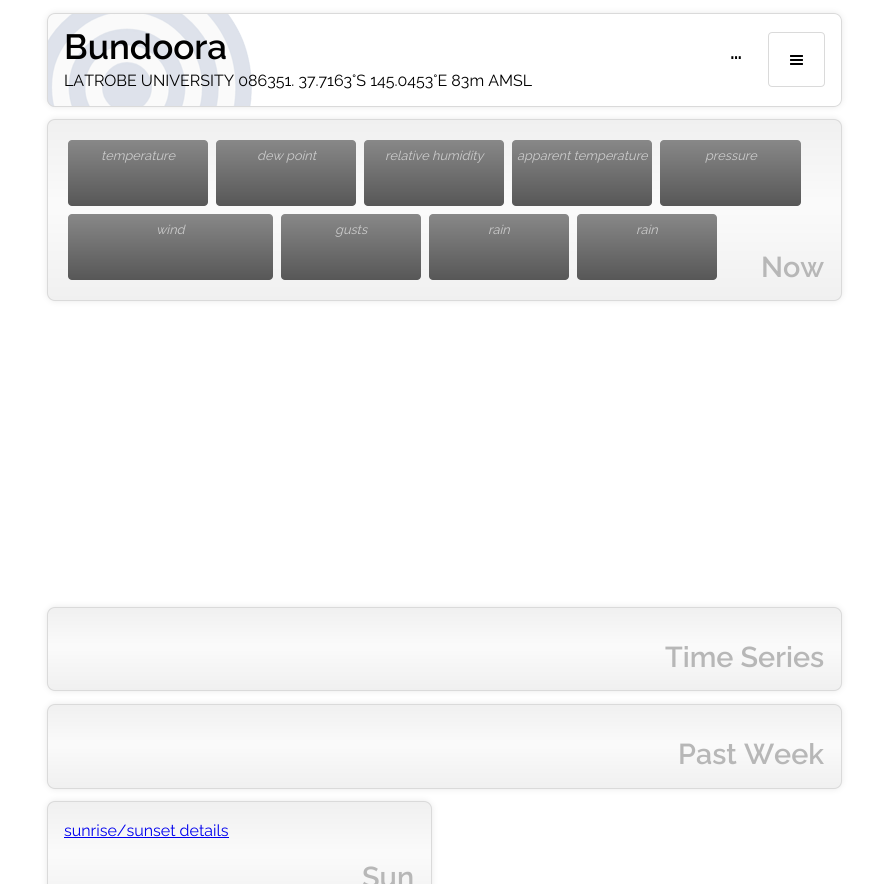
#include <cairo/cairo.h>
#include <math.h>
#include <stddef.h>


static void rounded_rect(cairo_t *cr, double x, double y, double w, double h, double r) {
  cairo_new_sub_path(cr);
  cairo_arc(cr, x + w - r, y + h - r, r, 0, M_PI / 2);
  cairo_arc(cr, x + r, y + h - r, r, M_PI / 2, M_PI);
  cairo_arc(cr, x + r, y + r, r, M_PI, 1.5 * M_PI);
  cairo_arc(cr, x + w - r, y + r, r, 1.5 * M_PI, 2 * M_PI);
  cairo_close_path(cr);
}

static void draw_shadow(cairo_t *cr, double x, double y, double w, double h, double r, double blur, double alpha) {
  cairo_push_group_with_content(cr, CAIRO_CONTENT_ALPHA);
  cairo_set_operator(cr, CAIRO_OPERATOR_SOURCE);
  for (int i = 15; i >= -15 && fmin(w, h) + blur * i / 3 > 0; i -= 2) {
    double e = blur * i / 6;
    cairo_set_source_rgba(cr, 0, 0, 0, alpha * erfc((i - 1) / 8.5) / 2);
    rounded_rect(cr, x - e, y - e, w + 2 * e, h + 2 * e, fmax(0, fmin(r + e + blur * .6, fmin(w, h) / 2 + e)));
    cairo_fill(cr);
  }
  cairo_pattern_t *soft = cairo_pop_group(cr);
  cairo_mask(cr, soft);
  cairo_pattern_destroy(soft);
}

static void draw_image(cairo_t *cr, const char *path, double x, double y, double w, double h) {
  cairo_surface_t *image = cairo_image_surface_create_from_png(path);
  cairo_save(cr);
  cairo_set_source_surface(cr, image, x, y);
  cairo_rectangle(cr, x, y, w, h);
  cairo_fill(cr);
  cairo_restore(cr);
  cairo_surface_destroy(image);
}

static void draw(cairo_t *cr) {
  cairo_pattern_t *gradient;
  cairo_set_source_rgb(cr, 1, 1, 1);
  cairo_paint(cr);
  cairo_save(cr);
  cairo_set_fill_rule(cr, CAIRO_FILL_RULE_EVEN_ODD);
  cairo_new_path(cr);
  cairo_move_to(cr, 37, 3);
  cairo_line_to(cr, 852, 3);
  cairo_line_to(cr, 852, 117);
  cairo_line_to(cr, 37, 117);
  cairo_close_path(cr);
  cairo_move_to(cr, 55, 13);
  cairo_line_to(cr, 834, 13);
  cairo_curve_to(cr, 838.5, 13, 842, 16.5, 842, 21);
  cairo_line_to(cr, 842, 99);
  cairo_curve_to(cr, 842, 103.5, 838.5, 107, 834, 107);
  cairo_line_to(cr, 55, 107);
  cairo_curve_to(cr, 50.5, 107, 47, 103.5, 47, 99);
  cairo_line_to(cr, 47, 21);
  cairo_curve_to(cr, 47, 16.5, 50.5, 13, 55, 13);
  cairo_close_path(cr);
  cairo_clip(cr);
  cairo_set_source_rgb(cr, 232 / 255.0, 232 / 255.0, 232 / 255.0);
  draw_shadow(cr, 47, 13, 795, 94, 8, 3, 1);
  cairo_restore(cr);
  draw_image(cr, "images/1.png", 47, 13, 205, 94);
  rounded_rect(cr, 47.5, 13.5, 794, 93, 7.5);
  cairo_set_source_rgb(cr, 218 / 255.0, 218 / 255.0, 218 / 255.0);
  cairo_set_line_width(cr, 1);
  cairo_stroke(cr);
  rounded_rect(cr, 768.5, 32.5, 56, 54, 3.5);
  cairo_stroke(cr);
  cairo_set_source_rgb(cr, 0, 0, 0);
  rounded_rect(cr, 790, 55, 13, 2, 0.5);
  cairo_fill(cr);
  rounded_rect(cr, 790, 59, 13, 2, 0.5);
  cairo_fill(cr);
  rounded_rect(cr, 790, 63, 13, 2, 0.5);
  cairo_fill(cr);
  cairo_set_source_rgb(cr, 232 / 255.0, 232 / 255.0, 232 / 255.0);
  draw_shadow(cr, 47, 119, 795, 182, 8, 3, 1);
  cairo_save(cr);
  rounded_rect(cr, 47, 119, 795, 182, 8);
  cairo_clip(cr);
  gradient = cairo_pattern_create_linear(445, 120, 445, 300);
  cairo_pattern_add_color_stop_rgba(gradient, 0, 240 / 255.0, 240 / 255.0, 240 / 255.0, 1);
  cairo_pattern_add_color_stop_rgba(gradient, 0.45, 250 / 255.0, 250 / 255.0, 250 / 255.0, 1);
  cairo_pattern_add_color_stop_rgba(gradient, 0.5, 250 / 255.0, 250 / 255.0, 250 / 255.0, 1);
  cairo_pattern_add_color_stop_rgba(gradient, 1, 240 / 255.0, 240 / 255.0, 240 / 255.0, 1);
  cairo_set_source(cr, gradient);
  cairo_pattern_destroy(gradient);
  cairo_rectangle(cr, 47, 120, 795, 180);
  cairo_fill(cr);
  cairo_restore(cr);
  rounded_rect(cr, 47.5, 119.5, 794, 181, 7.5);
  cairo_set_source_rgb(cr, 218 / 255.0, 218 / 255.0, 218 / 255.0);
  cairo_stroke(cr);
  gradient = cairo_pattern_create_linear(138, 140, 138, 206);
  cairo_pattern_add_color_stop_rgba(gradient, 0, 136 / 255.0, 136 / 255.0, 136 / 255.0, 1);
  cairo_pattern_add_color_stop_rgba(gradient, 1, 87 / 255.0, 87 / 255.0, 87 / 255.0, 1);
  cairo_set_source(cr, gradient);
  cairo_pattern_destroy(gradient);
  rounded_rect(cr, 68, 140, 140, 66, 4);
  cairo_fill(cr);
  gradient = cairo_pattern_create_linear(286, 140, 286, 206);
  cairo_pattern_add_color_stop_rgba(gradient, 0, 136 / 255.0, 136 / 255.0, 136 / 255.0, 1);
  cairo_pattern_add_color_stop_rgba(gradient, 1, 87 / 255.0, 87 / 255.0, 87 / 255.0, 1);
  cairo_set_source(cr, gradient);
  cairo_pattern_destroy(gradient);
  rounded_rect(cr, 216, 140, 140, 66, 4);
  cairo_fill(cr);
  gradient = cairo_pattern_create_linear(434, 140, 434, 206);
  cairo_pattern_add_color_stop_rgba(gradient, 0, 136 / 255.0, 136 / 255.0, 136 / 255.0, 1);
  cairo_pattern_add_color_stop_rgba(gradient, 1, 87 / 255.0, 87 / 255.0, 87 / 255.0, 1);
  cairo_set_source(cr, gradient);
  cairo_pattern_destroy(gradient);
  rounded_rect(cr, 364, 140, 140, 66, 4);
  cairo_fill(cr);
  gradient = cairo_pattern_create_linear(582, 140, 582, 206);
  cairo_pattern_add_color_stop_rgba(gradient, 0, 136 / 255.0, 136 / 255.0, 136 / 255.0, 1);
  cairo_pattern_add_color_stop_rgba(gradient, 1, 87 / 255.0, 87 / 255.0, 87 / 255.0, 1);
  cairo_set_source(cr, gradient);
  cairo_pattern_destroy(gradient);
  rounded_rect(cr, 512, 140, 140, 66, 4);
  cairo_fill(cr);
  gradient = cairo_pattern_create_linear(731, 140, 731, 206);
  cairo_pattern_add_color_stop_rgba(gradient, 0, 136 / 255.0, 136 / 255.0, 136 / 255.0, 1);
  cairo_pattern_add_color_stop_rgba(gradient, 1, 87 / 255.0, 87 / 255.0, 87 / 255.0, 1);
  cairo_set_source(cr, gradient);
  cairo_pattern_destroy(gradient);
  rounded_rect(cr, 660, 140, 141, 66, 4);
  cairo_fill(cr);
  gradient = cairo_pattern_create_linear(171, 214, 171, 280);
  cairo_pattern_add_color_stop_rgba(gradient, 0, 136 / 255.0, 136 / 255.0, 136 / 255.0, 1);
  cairo_pattern_add_color_stop_rgba(gradient, 1, 87 / 255.0, 87 / 255.0, 87 / 255.0, 1);
  cairo_set_source(cr, gradient);
  cairo_pattern_destroy(gradient);
  rounded_rect(cr, 68, 214, 205, 66, 4);
  cairo_fill(cr);
  gradient = cairo_pattern_create_linear(351, 214, 351, 280);
  cairo_pattern_add_color_stop_rgba(gradient, 0, 136 / 255.0, 136 / 255.0, 136 / 255.0, 1);
  cairo_pattern_add_color_stop_rgba(gradient, 1, 87 / 255.0, 87 / 255.0, 87 / 255.0, 1);
  cairo_set_source(cr, gradient);
  cairo_pattern_destroy(gradient);
  rounded_rect(cr, 281, 214, 140, 66, 4);
  cairo_fill(cr);
  gradient = cairo_pattern_create_linear(499, 214, 499, 280);
  cairo_pattern_add_color_stop_rgba(gradient, 0, 136 / 255.0, 136 / 255.0, 136 / 255.0, 1);
  cairo_pattern_add_color_stop_rgba(gradient, 1, 87 / 255.0, 87 / 255.0, 87 / 255.0, 1);
  cairo_set_source(cr, gradient);
  cairo_pattern_destroy(gradient);
  rounded_rect(cr, 429, 214, 140, 66, 4);
  cairo_fill(cr);
  gradient = cairo_pattern_create_linear(647, 214, 647, 280);
  cairo_pattern_add_color_stop_rgba(gradient, 0, 136 / 255.0, 136 / 255.0, 136 / 255.0, 1);
  cairo_pattern_add_color_stop_rgba(gradient, 1, 87 / 255.0, 87 / 255.0, 87 / 255.0, 1);
  cairo_set_source(cr, gradient);
  cairo_pattern_destroy(gradient);
  rounded_rect(cr, 577, 214, 140, 66, 4);
  cairo_fill(cr);
  cairo_set_source_rgb(cr, 232 / 255.0, 232 / 255.0, 232 / 255.0);
  draw_shadow(cr, 47, 607, 795, 84, 8, 3, 1);
  cairo_save(cr);
  rounded_rect(cr, 47, 607, 795, 84, 8);
  cairo_clip(cr);
  gradient = cairo_pattern_create_linear(445, 608, 445, 690);
  cairo_pattern_add_color_stop_rgba(gradient, 0, 240 / 255.0, 240 / 255.0, 240 / 255.0, 1);
  cairo_pattern_add_color_stop_rgba(gradient, 0.45, 250 / 255.0, 250 / 255.0, 250 / 255.0, 1);
  cairo_pattern_add_color_stop_rgba(gradient, 0.5, 250 / 255.0, 250 / 255.0, 250 / 255.0, 1);
  cairo_pattern_add_color_stop_rgba(gradient, 1, 240 / 255.0, 240 / 255.0, 240 / 255.0, 1);
  cairo_set_source(cr, gradient);
  cairo_pattern_destroy(gradient);
  cairo_rectangle(cr, 47, 608, 795, 82);
  cairo_fill(cr);
  cairo_restore(cr);
  rounded_rect(cr, 47.5, 607.5, 794, 83, 7.5);
  cairo_set_source_rgb(cr, 218 / 255.0, 218 / 255.0, 218 / 255.0);
  cairo_stroke(cr);
  cairo_set_source_rgb(cr, 232 / 255.0, 232 / 255.0, 232 / 255.0);
  draw_shadow(cr, 47, 704, 795, 85, 8, 3, 1);
  cairo_save(cr);
  rounded_rect(cr, 47, 704, 795, 85, 8);
  cairo_clip(cr);
  gradient = cairo_pattern_create_linear(445, 705, 445, 788);
  cairo_pattern_add_color_stop_rgba(gradient, 0, 240 / 255.0, 240 / 255.0, 240 / 255.0, 1);
  cairo_pattern_add_color_stop_rgba(gradient, 0.45, 250 / 255.0, 250 / 255.0, 250 / 255.0, 1);
  cairo_pattern_add_color_stop_rgba(gradient, 0.5, 250 / 255.0, 250 / 255.0, 250 / 255.0, 1);
  cairo_pattern_add_color_stop_rgba(gradient, 1, 240 / 255.0, 240 / 255.0, 240 / 255.0, 1);
  cairo_set_source(cr, gradient);
  cairo_pattern_destroy(gradient);
  cairo_rectangle(cr, 47, 705, 795, 83);
  cairo_fill(cr);
  cairo_restore(cr);
  rounded_rect(cr, 47.5, 704.5, 794, 84, 7.5);
  cairo_set_source_rgb(cr, 218 / 255.0, 218 / 255.0, 218 / 255.0);
  cairo_stroke(cr);
  cairo_set_source_rgb(cr, 232 / 255.0, 232 / 255.0, 232 / 255.0);
  draw_shadow(cr, 47, 801, 385, 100, 8, 3, 1);
  cairo_save(cr);
  rounded_rect(cr, 47, 801, 385, 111, 8);
  cairo_clip(cr);
  gradient = cairo_pattern_create_linear(240, 802, 240, 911);
  cairo_pattern_add_color_stop_rgba(gradient, 0, 240 / 255.0, 240 / 255.0, 240 / 255.0, 1);
  cairo_pattern_add_color_stop_rgba(gradient, 0.45, 250 / 255.0, 250 / 255.0, 250 / 255.0, 1);
  cairo_pattern_add_color_stop_rgba(gradient, 0.5, 250 / 255.0, 250 / 255.0, 250 / 255.0, 1);
  cairo_pattern_add_color_stop_rgba(gradient, 1, 240 / 255.0, 240 / 255.0, 240 / 255.0, 1);
  cairo_set_source(cr, gradient);
  cairo_pattern_destroy(gradient);
  cairo_rectangle(cr, 47, 802, 385, 82);
  cairo_fill(cr);
  cairo_restore(cr);
  rounded_rect(cr, 47.5, 801.5, 384, 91, 7.5);
  cairo_set_source_rgb(cr, 218 / 255.0, 218 / 255.0, 218 / 255.0);
  cairo_stroke(cr);
  cairo_set_source_rgb(cr, 0, 0, 238 / 255.0);
  cairo_rectangle(cr, 64, 837, 165, 1);
  cairo_fill(cr);
  cairo_select_font_face(cr, "Raleway SemiBold", CAIRO_FONT_SLANT_NORMAL, CAIRO_FONT_WEIGHT_NORMAL);
  cairo_set_font_size(cr, 35);
  cairo_set_source_rgb(cr, 0, 0, 0);
  cairo_move_to(cr, 64, 59);
  cairo_show_text(cr, "Bundoora");
  cairo_set_font_size(cr, 22);
  cairo_move_to(cr, 730, 59);
  cairo_show_text(cr, "…");
  cairo_select_font_face(cr, "Raleway", CAIRO_FONT_SLANT_NORMAL, CAIRO_FONT_WEIGHT_NORMAL);
  cairo_set_font_size(cr, 16);
  cairo_move_to(cr, 64, 86);
  cairo_show_text(cr, "LATROBE UNIVERSITY 086351. 37.7163°S 145.0453°E 83m AMSL");
  cairo_select_font_face(cr, "Raleway", CAIRO_FONT_SLANT_ITALIC, CAIRO_FONT_WEIGHT_NORMAL);
  cairo_set_font_size(cr, 12.75);
  cairo_set_source_rgb(cr, 204 / 255.0, 204 / 255.0, 204 / 255.0);
  cairo_move_to(cr, 101, 160);
  cairo_show_text(cr, "temperature");
  cairo_move_to(cr, 257, 160);
  cairo_show_text(cr, "dew point");
  cairo_move_to(cr, 385, 160);
  cairo_show_text(cr, "relative humidity");
  cairo_move_to(cr, 517, 160);
  cairo_show_text(cr, "apparent temperature");
  cairo_move_to(cr, 705, 160);
  cairo_show_text(cr, "pressure");
  cairo_move_to(cr, 156, 234);
  cairo_show_text(cr, "wind");
  cairo_move_to(cr, 335, 234);
  cairo_show_text(cr, "gusts");
  cairo_move_to(cr, 488, 234);
  cairo_show_text(cr, "rain");
  cairo_move_to(cr, 636, 234);
  cairo_show_text(cr, "rain");
  cairo_select_font_face(cr, "Raleway SemiBold", CAIRO_FONT_SLANT_NORMAL, CAIRO_FONT_WEIGHT_NORMAL);
  cairo_set_font_size(cr, 28.75);
  cairo_set_source_rgb(cr, 183 / 255.0, 183 / 255.0, 183 / 255.0);
  cairo_move_to(cr, 761, 277);
  cairo_show_text(cr, "Now");
  cairo_move_to(cr, 665, 667);
  cairo_show_text(cr, "Time Series");
  cairo_move_to(cr, 678, 764);
  cairo_show_text(cr, "Past Week");
  cairo_select_font_face(cr, "Raleway", CAIRO_FONT_SLANT_NORMAL, CAIRO_FONT_WEIGHT_NORMAL);
  cairo_set_font_size(cr, 16);
  cairo_set_source_rgb(cr, 0, 0, 238 / 255.0);
  cairo_move_to(cr, 64, 836);
  cairo_show_text(cr, "sunrise/sunset details");
  cairo_select_font_face(cr, "Raleway SemiBold", CAIRO_FONT_SLANT_NORMAL, CAIRO_FONT_WEIGHT_NORMAL);
  cairo_set_font_size(cr, 28.75);
  cairo_set_source_rgb(cr, 183 / 255.0, 183 / 255.0, 183 / 255.0);
  cairo_move_to(cr, 362, 887);
  cairo_show_text(cr, "Sun");
}

int main(void) {
  cairo_surface_t *surface = cairo_image_surface_create(CAIRO_FORMAT_RGB24, 889, 884);
  cairo_t *cr = cairo_create(surface);
  cairo_font_options_t *options = cairo_font_options_create();
  cairo_font_options_set_hint_metrics(options, CAIRO_HINT_METRICS_OFF);
  cairo_font_options_set_hint_style(options, CAIRO_HINT_STYLE_NONE);
  cairo_set_font_options(cr, options);
  cairo_set_miter_limit(cr, 4);
  draw(cr);
  cairo_surface_write_to_png(surface, "out.png");
  cairo_font_options_destroy(options);
  cairo_destroy(cr);
  cairo_surface_destroy(surface);
  return 0;
}
